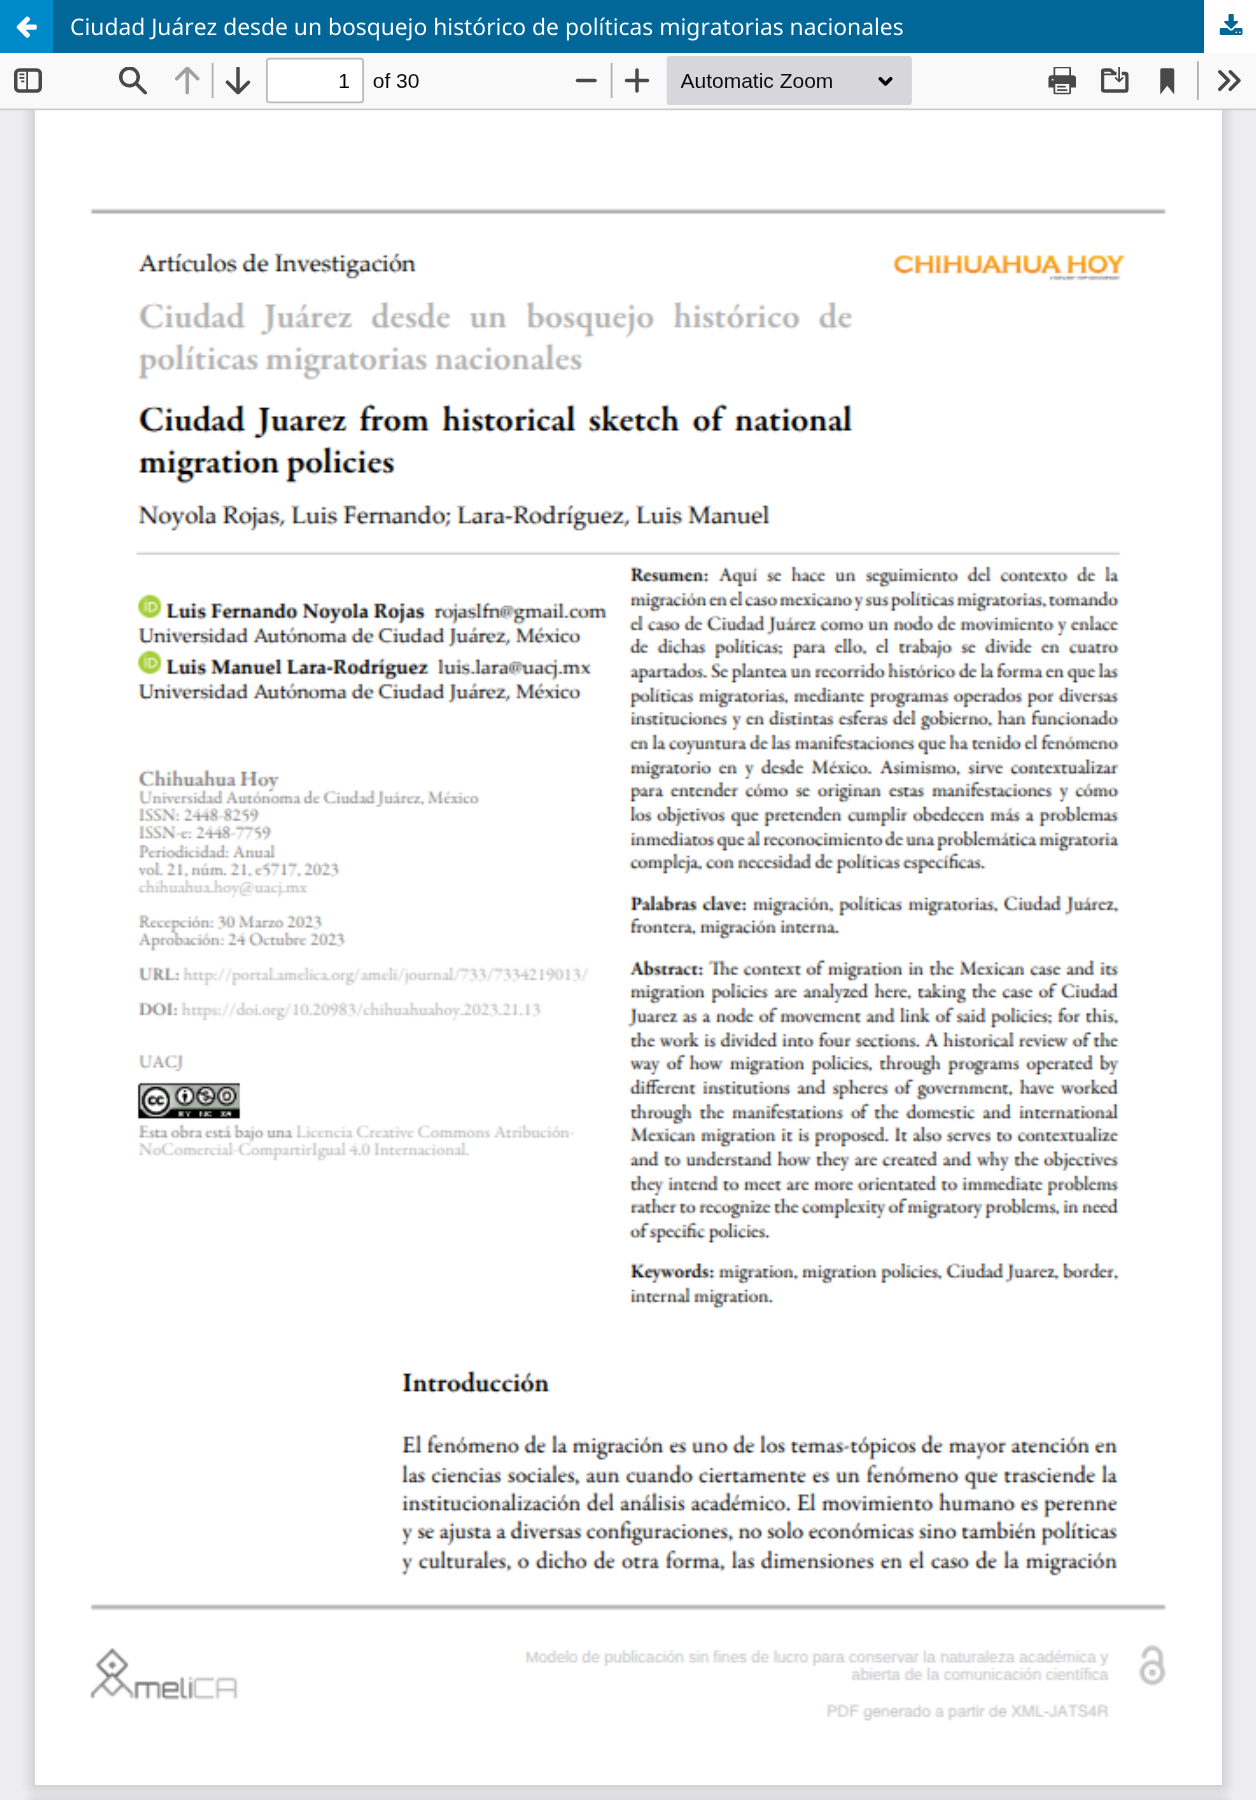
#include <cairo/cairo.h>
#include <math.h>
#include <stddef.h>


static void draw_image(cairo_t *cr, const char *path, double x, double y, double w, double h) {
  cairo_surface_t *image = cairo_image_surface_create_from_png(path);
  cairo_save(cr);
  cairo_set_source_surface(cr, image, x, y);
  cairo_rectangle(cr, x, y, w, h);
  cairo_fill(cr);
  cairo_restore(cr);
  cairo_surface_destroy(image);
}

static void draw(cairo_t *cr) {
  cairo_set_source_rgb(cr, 1, 1, 1);
  cairo_paint(cr);
  cairo_set_source_rgb(cr, 0, 103 / 255.0, 152 / 255.0);
  cairo_rectangle(cr, 53, 0, 1151, 53);
  cairo_fill(cr);
  cairo_set_source_rgb(cr, 0, 138 / 255.0, 203 / 255.0);
  cairo_rectangle(cr, 0, 0, 53, 53);
  cairo_fill(cr);
  draw_image(cr, "images/1.png", 16, 16, 21, 22);
  draw_image(cr, "images/2.png", 1219, 14, 24, 21);
  draw_image(cr, "images/3.png", 0, 53, 1256, 1747);
  cairo_select_font_face(cr, "Noto Sans", CAIRO_FONT_SLANT_NORMAL, CAIRO_FONT_WEIGHT_NORMAL);
  cairo_set_font_size(cr, 22.8);
  cairo_set_source_rgb(cr, 1, 1, 1);
  cairo_move_to(cr, 70, 35);
  cairo_show_text(cr, "Ciudad Juárez desde un bosquejo histórico de políticas migratorias nacionales");
}

int main(void) {
  cairo_surface_t *surface = cairo_image_surface_create(CAIRO_FORMAT_RGB24, 1256, 1800);
  cairo_t *cr = cairo_create(surface);
  cairo_font_options_t *options = cairo_font_options_create();
  cairo_font_options_set_hint_metrics(options, CAIRO_HINT_METRICS_OFF);
  cairo_font_options_set_hint_style(options, CAIRO_HINT_STYLE_NONE);
  cairo_set_font_options(cr, options);
  cairo_set_miter_limit(cr, 4);
  draw(cr);
  cairo_surface_write_to_png(surface, "out.png");
  cairo_font_options_destroy(options);
  cairo_destroy(cr);
  cairo_surface_destroy(surface);
  return 0;
}
